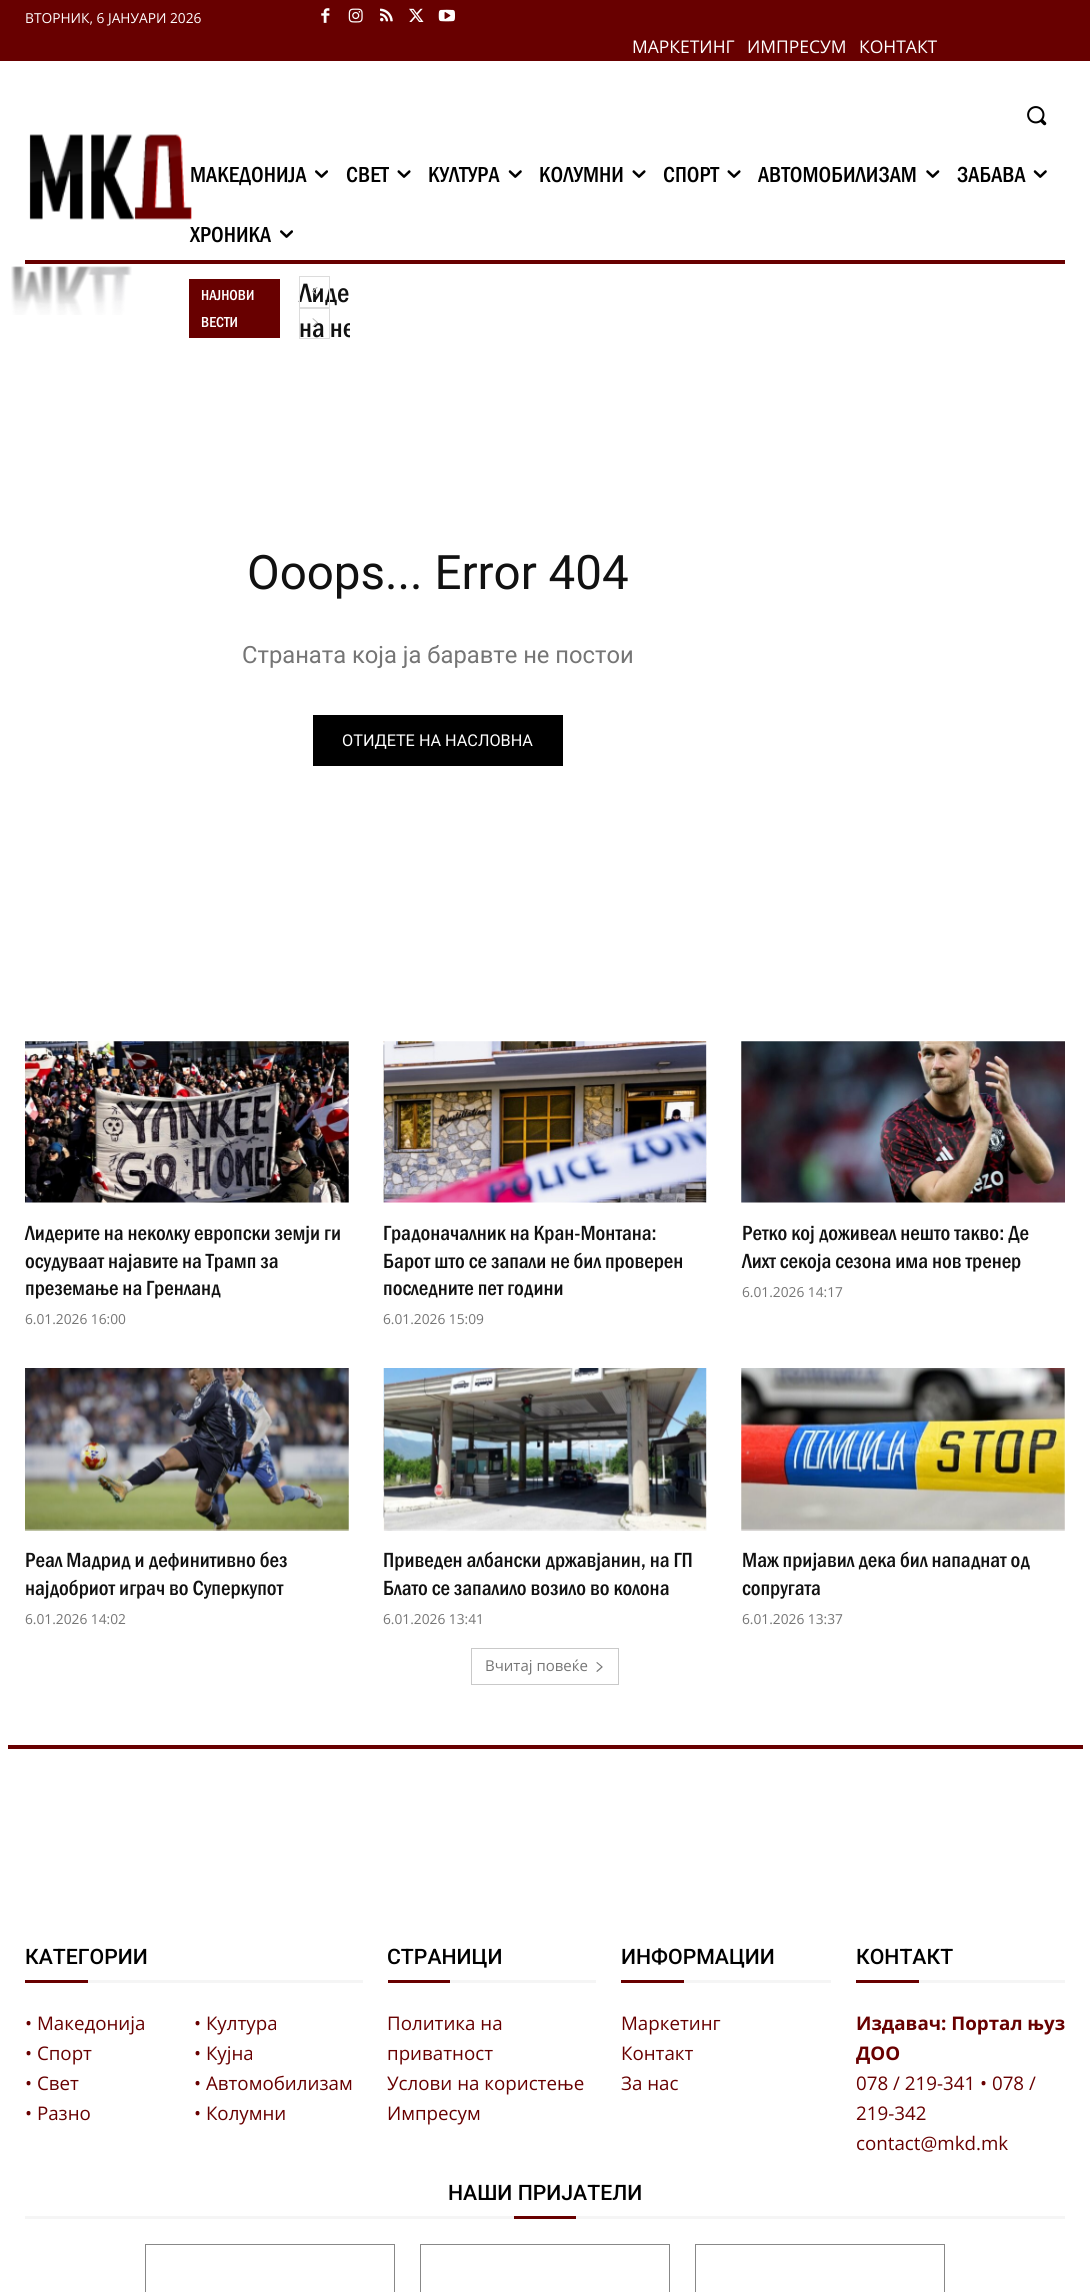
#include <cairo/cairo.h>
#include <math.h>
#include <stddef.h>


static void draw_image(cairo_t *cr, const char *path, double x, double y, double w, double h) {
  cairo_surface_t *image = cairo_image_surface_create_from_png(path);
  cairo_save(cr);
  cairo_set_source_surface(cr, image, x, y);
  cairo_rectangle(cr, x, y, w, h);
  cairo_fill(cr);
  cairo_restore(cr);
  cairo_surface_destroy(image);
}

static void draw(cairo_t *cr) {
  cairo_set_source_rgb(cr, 1, 1, 1);
  cairo_paint(cr);
  cairo_set_source_rgb(cr, 104 / 255.0, 0, 0);
  cairo_rectangle(cr, 0, 0, 1090, 61);
  cairo_fill(cr);
  draw_image(cr, "images/1.png", 321, 8, 9, 15);
  draw_image(cr, "images/2.png", 348, 8, 15, 15);
  draw_image(cr, "images/3.png", 380, 8, 13, 14);
  draw_image(cr, "images/4.png", 409, 8, 15, 14);
  draw_image(cr, "images/5.png", 438, 9, 17, 13);
  draw_image(cr, "images/6.png", 29, 134, 163, 86);
  draw_image(cr, "images/7.png", 1027, 106, 20, 20);
  draw_image(cr, "images/8.png", 315, 170, 13, 8);
  draw_image(cr, "images/9.png", 397, 170, 14, 8);
  draw_image(cr, "images/10.png", 508, 170, 14, 8);
  draw_image(cr, "images/9.png", 632, 170, 14, 8);
  draw_image(cr, "images/9.png", 727, 170, 14, 8);
  draw_image(cr, "images/11.png", 926, 170, 14, 8);
  draw_image(cr, "images/10.png", 1033, 170, 14, 8);
  draw_image(cr, "images/8.png", 280, 230, 13, 8);
  cairo_rectangle(cr, 25, 260, 1040, 4);
  cairo_fill(cr);
  draw_image(cr, "images/12.png", 11, 266, 121, 49);
  cairo_rectangle(cr, 189, 279, 91, 59);
  cairo_fill(cr);
  cairo_set_source_rgb(cr, 0, 0, 0);
  cairo_rectangle(cr, 313, 715, 250, 51);
  cairo_fill(cr);
  draw_image(cr, "images/15.png", 25, 1041, 324, 162);
  draw_image(cr, "images/16.png", 383, 1041, 324, 162);
  draw_image(cr, "images/17.png", 741, 1041, 324, 162);
  draw_image(cr, "images/18.png", 25, 1368, 324, 163);
  draw_image(cr, "images/19.png", 383, 1368, 324, 163);
  draw_image(cr, "images/20.png", 741, 1368, 324, 163);
  cairo_rectangle(cr, 471.5, 1648.5, 147, 36);
  cairo_set_source_rgb(cr, 201 / 255.0, 201 / 255.0, 201 / 255.0);
  cairo_set_line_width(cr, 1);
  cairo_stroke(cr);
  draw_image(cr, "images/21.png", 596, 1662, 7, 10);
  cairo_set_source_rgb(cr, 104 / 255.0, 0, 0);
  cairo_rectangle(cr, 8, 1745, 1075, 4);
  cairo_fill(cr);
  cairo_rectangle(cr, 25, 1980, 63, 3);
  cairo_fill(cr);
  cairo_set_source_rgb(cr, 245 / 255.0, 245 / 255.0, 245 / 255.0);
  cairo_rectangle(cr, 88, 1980, 275, 3);
  cairo_fill(cr);
  cairo_set_source_rgb(cr, 104 / 255.0, 0, 0);
  cairo_rectangle(cr, 388, 1980, 62, 3);
  cairo_fill(cr);
  cairo_set_source_rgb(cr, 245 / 255.0, 245 / 255.0, 245 / 255.0);
  cairo_rectangle(cr, 450, 1980, 146, 3);
  cairo_fill(cr);
  cairo_set_source_rgb(cr, 104 / 255.0, 0, 0);
  cairo_rectangle(cr, 621, 1980, 63, 3);
  cairo_fill(cr);
  cairo_set_source_rgb(cr, 245 / 255.0, 245 / 255.0, 245 / 255.0);
  cairo_rectangle(cr, 684, 1980, 147, 3);
  cairo_fill(cr);
  cairo_set_source_rgb(cr, 104 / 255.0, 0, 0);
  cairo_rectangle(cr, 856, 1980, 63, 3);
  cairo_fill(cr);
  cairo_set_source_rgb(cr, 245 / 255.0, 245 / 255.0, 245 / 255.0);
  cairo_rectangle(cr, 919, 1980, 146, 3);
  cairo_fill(cr);
  cairo_rectangle(cr, 25, 2216, 1040, 3);
  cairo_fill(cr);
  cairo_set_source_rgb(cr, 104 / 255.0, 0, 0);
  cairo_rectangle(cr, 514, 2216, 62, 3);
  cairo_fill(cr);
  cairo_rectangle(cr, 145.5, 2244.5, 249, 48);
  cairo_set_source_rgb(cr, 136 / 255.0, 136 / 255.0, 136 / 255.0);
  cairo_stroke(cr);
  cairo_rectangle(cr, 420.5, 2244.5, 249, 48);
  cairo_stroke(cr);
  cairo_rectangle(cr, 695.5, 2244.5, 249, 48);
  cairo_stroke(cr);
  cairo_select_font_face(cr, "Open Sans", CAIRO_FONT_SLANT_NORMAL, CAIRO_FONT_WEIGHT_NORMAL);
  cairo_set_font_size(cr, 13.75);
  cairo_set_source_rgb(cr, 1, 1, 1);
  cairo_move_to(cr, 25, 23);
  cairo_show_text(cr, "ВТОРНИК, 6 ЈАНУАРИ 2026");
  cairo_set_font_size(cr, 17.5);
  cairo_move_to(cr, 632, 53);
  cairo_show_text(cr, "МАРКЕТИНГ");
  cairo_move_to(cr, 747, 53);
  cairo_show_text(cr, "ИМПРЕСУМ");
  cairo_move_to(cr, 859, 53);
  cairo_show_text(cr, "КОНТАКТ");
  cairo_select_font_face(cr, "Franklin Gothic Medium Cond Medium", CAIRO_FONT_SLANT_NORMAL, CAIRO_FONT_WEIGHT_NORMAL);
  cairo_set_font_size(cr, 22.5);
  cairo_set_source_rgb(cr, 0, 0, 0);
  cairo_move_to(cr, 190, 182);
  cairo_show_text(cr, "МАКЕДОНИЈА");
  cairo_move_to(cr, 346, 182);
  cairo_show_text(cr, "СВЕТ");
  cairo_move_to(cr, 428, 182);
  cairo_show_text(cr, "КУЛТУРА");
  cairo_move_to(cr, 539, 182);
  cairo_show_text(cr, "КОЛУМНИ");
  cairo_move_to(cr, 663, 182);
  cairo_show_text(cr, "СПОРТ");
  cairo_move_to(cr, 758, 182);
  cairo_show_text(cr, "АВТОМОБИЛИЗАМ");
  cairo_move_to(cr, 957, 182);
  cairo_show_text(cr, "ЗАБАВА");
  cairo_move_to(cr, 190, 242);
  cairo_show_text(cr, "ХРОНИКА");
  cairo_set_font_size(cr, 15);
  cairo_set_source_rgb(cr, 1, 1, 1);
  cairo_move_to(cr, 201, 300);
  cairo_show_text(cr, "НАЈНОВИ");
  cairo_move_to(cr, 201, 327);
  cairo_show_text(cr, "ВЕСТИ");
  cairo_set_font_size(cr, 27.5);
  cairo_set_source_rgb(cr, 17 / 255.0, 17 / 255.0, 17 / 255.0);
  cairo_move_to(cr, 299, 302);
  cairo_show_text(cr, "Лиде");
  cairo_rectangle(cr, 299.5, 276.5, 30, 31);
  cairo_set_source_rgb(cr, 220 / 255.0, 220 / 255.0, 220 / 255.0);
  cairo_stroke(cr);
  draw_image(cr, "images/13.png", 312, 287, 6, 9);
  cairo_save(cr);
  cairo_rectangle(cr, 299, 276, 51, 63);
  cairo_clip(cr);
  cairo_set_source_rgb(cr, 17 / 255.0, 17 / 255.0, 17 / 255.0);
  cairo_move_to(cr, 299, 337);
  cairo_show_text(cr, "на не");
  cairo_restore(cr);
  cairo_rectangle(cr, 299.5, 308.5, 30, 30);
  cairo_stroke(cr);
  draw_image(cr, "images/14.png", 312, 318, 6, 9);
  cairo_select_font_face(cr, "Roboto", CAIRO_FONT_SLANT_NORMAL, CAIRO_FONT_WEIGHT_NORMAL);
  cairo_set_font_size(cr, 47.5);
  cairo_set_source_rgb(cr, 17 / 255.0, 17 / 255.0, 17 / 255.0);
  cairo_move_to(cr, 247, 589);
  cairo_show_text(cr, "Ooops... Error 404");
  cairo_set_font_size(cr, 23.75);
  cairo_set_source_rgb(cr, 117 / 255.0, 117 / 255.0, 117 / 255.0);
  cairo_move_to(cr, 242, 663);
  cairo_show_text(cr, "Страната која ја баравте не постои");
  cairo_set_font_size(cr, 16.25);
  cairo_set_source_rgb(cr, 1, 1, 1);
  cairo_move_to(cr, 342, 746);
  cairo_show_text(cr, "ОТИДЕТЕ НА НАСЛОВНА");
  cairo_select_font_face(cr, "Franklin Gothic Medium Cond Medium", CAIRO_FONT_SLANT_NORMAL, CAIRO_FONT_WEIGHT_NORMAL);
  cairo_set_font_size(cr, 21.25);
  cairo_set_source_rgb(cr, 17 / 255.0, 17 / 255.0, 17 / 255.0);
  cairo_move_to(cr, 25, 1240);
  cairo_show_text(cr, "Лидерите на неколку европски земји ги");
  cairo_move_to(cr, 25, 1268);
  cairo_show_text(cr, "осудуваат најавите на Трамп за");
  cairo_move_to(cr, 25, 1295);
  cairo_show_text(cr, "преземање на Гренланд");
  cairo_select_font_face(cr, "Open Sans", CAIRO_FONT_SLANT_NORMAL, CAIRO_FONT_WEIGHT_NORMAL);
  cairo_set_font_size(cr, 13.75);
  cairo_set_source_rgb(cr, 117 / 255.0, 117 / 255.0, 117 / 255.0);
  cairo_move_to(cr, 25, 1324);
  cairo_show_text(cr, "6.01.2026 16:00");
  cairo_select_font_face(cr, "Franklin Gothic Medium Cond Medium", CAIRO_FONT_SLANT_NORMAL, CAIRO_FONT_WEIGHT_NORMAL);
  cairo_set_font_size(cr, 21.25);
  cairo_set_source_rgb(cr, 17 / 255.0, 17 / 255.0, 17 / 255.0);
  cairo_move_to(cr, 383, 1240);
  cairo_show_text(cr, "Градоначалник на Кран-Монтана:");
  cairo_move_to(cr, 383, 1268);
  cairo_show_text(cr, "Барот што се запали не бил проверен");
  cairo_move_to(cr, 383, 1295);
  cairo_show_text(cr, "последните пет години");
  cairo_select_font_face(cr, "Open Sans", CAIRO_FONT_SLANT_NORMAL, CAIRO_FONT_WEIGHT_NORMAL);
  cairo_set_font_size(cr, 13.75);
  cairo_set_source_rgb(cr, 117 / 255.0, 117 / 255.0, 117 / 255.0);
  cairo_move_to(cr, 383, 1324);
  cairo_show_text(cr, "6.01.2026 15:09");
  cairo_select_font_face(cr, "Franklin Gothic Medium Cond Medium", CAIRO_FONT_SLANT_NORMAL, CAIRO_FONT_WEIGHT_NORMAL);
  cairo_set_font_size(cr, 21.25);
  cairo_set_source_rgb(cr, 17 / 255.0, 17 / 255.0, 17 / 255.0);
  cairo_move_to(cr, 742, 1240);
  cairo_show_text(cr, "Ретко кој доживеал нешто такво: Де");
  cairo_move_to(cr, 742, 1268);
  cairo_show_text(cr, "Лихт секоја сезона има нов тренер");
  cairo_select_font_face(cr, "Open Sans", CAIRO_FONT_SLANT_NORMAL, CAIRO_FONT_WEIGHT_NORMAL);
  cairo_set_font_size(cr, 13.75);
  cairo_set_source_rgb(cr, 117 / 255.0, 117 / 255.0, 117 / 255.0);
  cairo_move_to(cr, 742, 1297);
  cairo_show_text(cr, "6.01.2026 14:17");
  cairo_select_font_face(cr, "Franklin Gothic Medium Cond Medium", CAIRO_FONT_SLANT_NORMAL, CAIRO_FONT_WEIGHT_NORMAL);
  cairo_set_font_size(cr, 21.25);
  cairo_set_source_rgb(cr, 17 / 255.0, 17 / 255.0, 17 / 255.0);
  cairo_move_to(cr, 25, 1567);
  cairo_show_text(cr, "Реал Мадрид и дефинитивно без");
  cairo_move_to(cr, 25, 1595);
  cairo_show_text(cr, "најдобриот играч во Суперкупот");
  cairo_select_font_face(cr, "Open Sans", CAIRO_FONT_SLANT_NORMAL, CAIRO_FONT_WEIGHT_NORMAL);
  cairo_set_font_size(cr, 13.75);
  cairo_set_source_rgb(cr, 117 / 255.0, 117 / 255.0, 117 / 255.0);
  cairo_move_to(cr, 25, 1624);
  cairo_show_text(cr, "6.01.2026 14:02");
  cairo_select_font_face(cr, "Franklin Gothic Medium Cond Medium", CAIRO_FONT_SLANT_NORMAL, CAIRO_FONT_WEIGHT_NORMAL);
  cairo_set_font_size(cr, 21.25);
  cairo_set_source_rgb(cr, 17 / 255.0, 17 / 255.0, 17 / 255.0);
  cairo_move_to(cr, 383, 1567);
  cairo_show_text(cr, "Приведен албански државјанин, на ГП");
  cairo_move_to(cr, 383, 1595);
  cairo_show_text(cr, "Блато се запалило возило во колона");
  cairo_select_font_face(cr, "Open Sans", CAIRO_FONT_SLANT_NORMAL, CAIRO_FONT_WEIGHT_NORMAL);
  cairo_set_font_size(cr, 13.75);
  cairo_set_source_rgb(cr, 117 / 255.0, 117 / 255.0, 117 / 255.0);
  cairo_move_to(cr, 383, 1624);
  cairo_show_text(cr, "6.01.2026 13:41");
  cairo_select_font_face(cr, "Franklin Gothic Medium Cond Medium", CAIRO_FONT_SLANT_NORMAL, CAIRO_FONT_WEIGHT_NORMAL);
  cairo_set_font_size(cr, 21.25);
  cairo_set_source_rgb(cr, 17 / 255.0, 17 / 255.0, 17 / 255.0);
  cairo_move_to(cr, 742, 1567);
  cairo_show_text(cr, "Маж пријавил дека бил нападнат од");
  cairo_move_to(cr, 742, 1595);
  cairo_show_text(cr, "сопругата");
  cairo_select_font_face(cr, "Open Sans", CAIRO_FONT_SLANT_NORMAL, CAIRO_FONT_WEIGHT_NORMAL);
  cairo_set_font_size(cr, 13.75);
  cairo_set_source_rgb(cr, 117 / 255.0, 117 / 255.0, 117 / 255.0);
  cairo_move_to(cr, 742, 1624);
  cairo_show_text(cr, "6.01.2026 13:37");
  cairo_set_font_size(cr, 15);
  cairo_move_to(cr, 485, 1671);
  cairo_show_text(cr, "Вчитај повеќе");
  cairo_select_font_face(cr, "Roboto Medium", CAIRO_FONT_SLANT_NORMAL, CAIRO_FONT_WEIGHT_NORMAL);
  cairo_set_font_size(cr, 21.25);
  cairo_set_source_rgb(cr, 0, 0, 0);
  cairo_move_to(cr, 25, 1964);
  cairo_show_text(cr, "КАТЕГОРИИ");
  cairo_select_font_face(cr, "Open Sans", CAIRO_FONT_SLANT_NORMAL, CAIRO_FONT_WEIGHT_NORMAL);
  cairo_set_font_size(cr, 18.75);
  cairo_set_source_rgb(cr, 104 / 255.0, 0, 0);
  cairo_move_to(cr, 25, 2030);
  cairo_show_text(cr, "• Македонија");
  cairo_move_to(cr, 25, 2060);
  cairo_show_text(cr, "• Спорт");
  cairo_move_to(cr, 25, 2090);
  cairo_show_text(cr, "• Свет");
  cairo_move_to(cr, 25, 2120);
  cairo_show_text(cr, "• Разно");
  cairo_move_to(cr, 194, 2030);
  cairo_show_text(cr, "• Култура");
  cairo_move_to(cr, 194, 2060);
  cairo_show_text(cr, "• Кујна");
  cairo_move_to(cr, 194, 2090);
  cairo_show_text(cr, "• Автомобилизам");
  cairo_move_to(cr, 194, 2120);
  cairo_show_text(cr, "• Колумни");
  cairo_select_font_face(cr, "Roboto Medium", CAIRO_FONT_SLANT_NORMAL, CAIRO_FONT_WEIGHT_NORMAL);
  cairo_set_font_size(cr, 21.25);
  cairo_set_source_rgb(cr, 0, 0, 0);
  cairo_move_to(cr, 387, 1964);
  cairo_show_text(cr, "СТРАНИЦИ");
  cairo_select_font_face(cr, "Open Sans", CAIRO_FONT_SLANT_NORMAL, CAIRO_FONT_WEIGHT_NORMAL);
  cairo_set_font_size(cr, 18.75);
  cairo_set_source_rgb(cr, 104 / 255.0, 0, 0);
  cairo_move_to(cr, 387, 2030);
  cairo_show_text(cr, "Политика на");
  cairo_move_to(cr, 387, 2060);
  cairo_show_text(cr, "приватност");
  cairo_move_to(cr, 387, 2090);
  cairo_show_text(cr, "Услови на користење");
  cairo_move_to(cr, 387, 2120);
  cairo_show_text(cr, "Импресум");
  cairo_select_font_face(cr, "Roboto Medium", CAIRO_FONT_SLANT_NORMAL, CAIRO_FONT_WEIGHT_NORMAL);
  cairo_set_font_size(cr, 21.25);
  cairo_set_source_rgb(cr, 0, 0, 0);
  cairo_move_to(cr, 621, 1964);
  cairo_show_text(cr, "ИНФОРМАЦИИ");
  cairo_select_font_face(cr, "Open Sans", CAIRO_FONT_SLANT_NORMAL, CAIRO_FONT_WEIGHT_NORMAL);
  cairo_set_font_size(cr, 18.75);
  cairo_set_source_rgb(cr, 104 / 255.0, 0, 0);
  cairo_move_to(cr, 621, 2030);
  cairo_show_text(cr, "Маркетинг");
  cairo_move_to(cr, 621, 2060);
  cairo_show_text(cr, "Контакт");
  cairo_move_to(cr, 621, 2090);
  cairo_show_text(cr, "За нас");
  cairo_select_font_face(cr, "Roboto Medium", CAIRO_FONT_SLANT_NORMAL, CAIRO_FONT_WEIGHT_NORMAL);
  cairo_set_font_size(cr, 21.25);
  cairo_set_source_rgb(cr, 0, 0, 0);
  cairo_move_to(cr, 856, 1964);
  cairo_show_text(cr, "КОНТАКТ");
  cairo_select_font_face(cr, "Open Sans", CAIRO_FONT_SLANT_NORMAL, CAIRO_FONT_WEIGHT_BOLD);
  cairo_set_font_size(cr, 18.75);
  cairo_set_source_rgb(cr, 104 / 255.0, 0, 0);
  cairo_move_to(cr, 856, 2030);
  cairo_show_text(cr, "Издавач: Портал њуз");
  cairo_move_to(cr, 856, 2060);
  cairo_show_text(cr, "ДОО");
  cairo_select_font_face(cr, "Open Sans", CAIRO_FONT_SLANT_NORMAL, CAIRO_FONT_WEIGHT_NORMAL);
  cairo_move_to(cr, 856, 2090);
  cairo_show_text(cr, "078 / 219-341 • 078 /");
  cairo_move_to(cr, 856, 2120);
  cairo_show_text(cr, "219-342");
  cairo_move_to(cr, 856, 2150);
  cairo_show_text(cr, "contact@mkd.mk");
  cairo_select_font_face(cr, "Roboto Medium", CAIRO_FONT_SLANT_NORMAL, CAIRO_FONT_WEIGHT_NORMAL);
  cairo_set_font_size(cr, 21.25);
  cairo_set_source_rgb(cr, 0, 0, 0);
  cairo_move_to(cr, 448, 2200);
  cairo_show_text(cr, "НАШИ ПРИЈАТЕЛИ");
}

int main(void) {
  cairo_surface_t *surface = cairo_image_surface_create(CAIRO_FORMAT_RGB24, 1090, 2292);
  cairo_t *cr = cairo_create(surface);
  cairo_font_options_t *options = cairo_font_options_create();
  cairo_font_options_set_hint_metrics(options, CAIRO_HINT_METRICS_OFF);
  cairo_font_options_set_hint_style(options, CAIRO_HINT_STYLE_NONE);
  cairo_set_font_options(cr, options);
  cairo_set_miter_limit(cr, 4);
  draw(cr);
  cairo_surface_write_to_png(surface, "out.png");
  cairo_font_options_destroy(options);
  cairo_destroy(cr);
  cairo_surface_destroy(surface);
  return 0;
}
